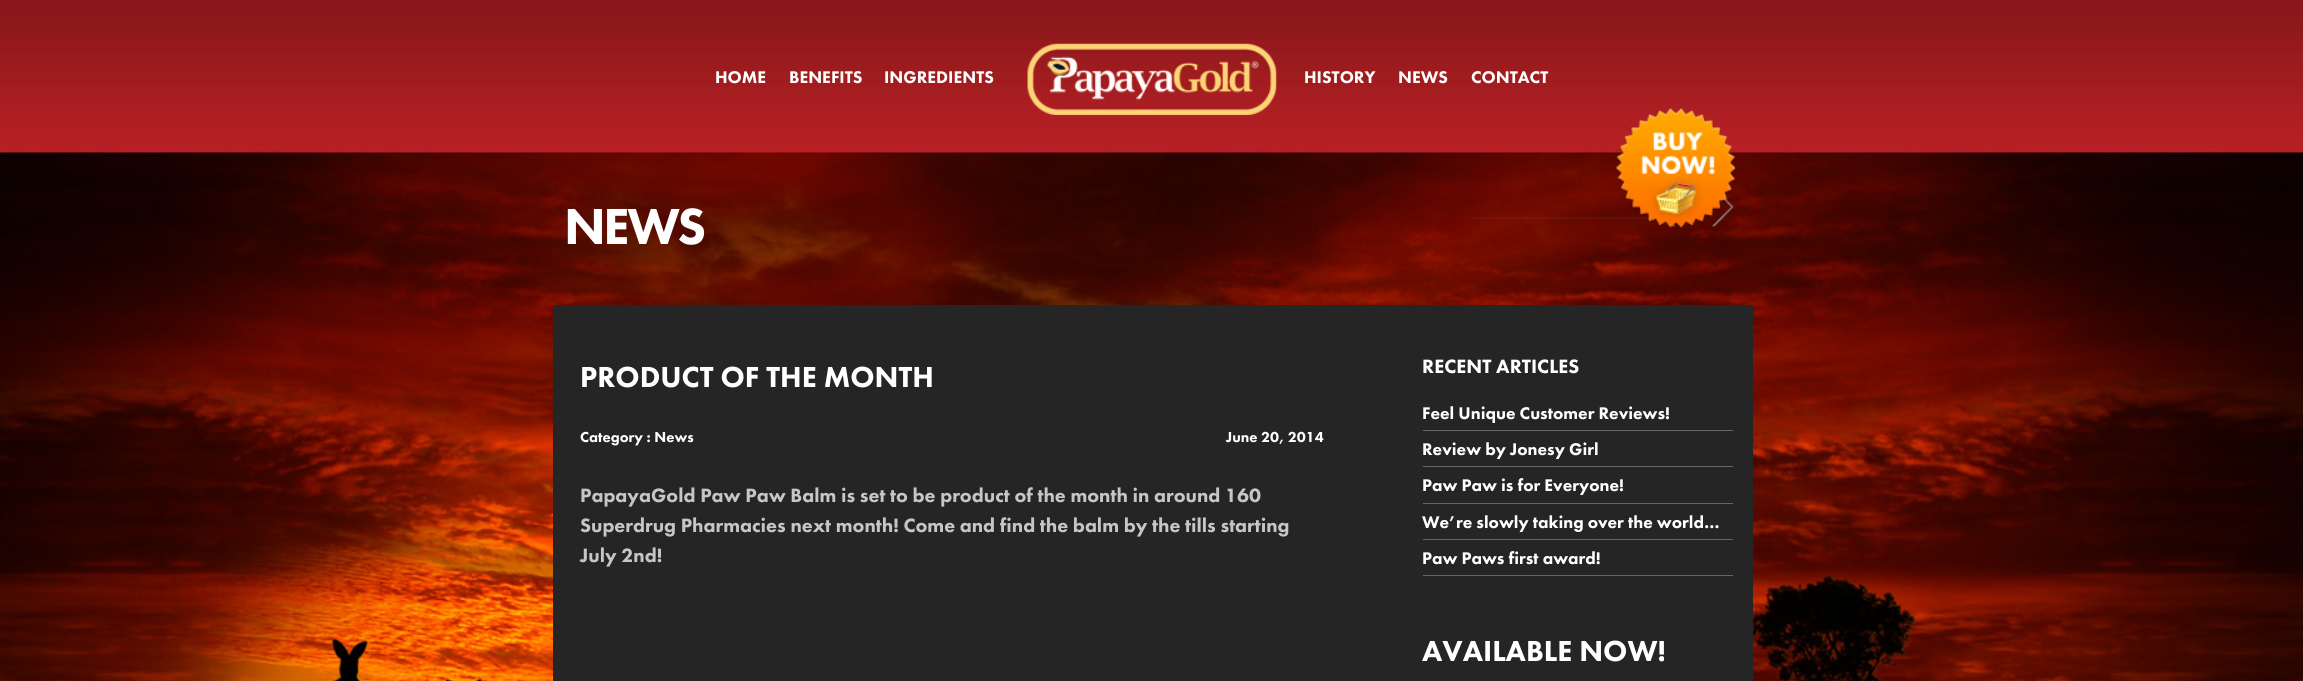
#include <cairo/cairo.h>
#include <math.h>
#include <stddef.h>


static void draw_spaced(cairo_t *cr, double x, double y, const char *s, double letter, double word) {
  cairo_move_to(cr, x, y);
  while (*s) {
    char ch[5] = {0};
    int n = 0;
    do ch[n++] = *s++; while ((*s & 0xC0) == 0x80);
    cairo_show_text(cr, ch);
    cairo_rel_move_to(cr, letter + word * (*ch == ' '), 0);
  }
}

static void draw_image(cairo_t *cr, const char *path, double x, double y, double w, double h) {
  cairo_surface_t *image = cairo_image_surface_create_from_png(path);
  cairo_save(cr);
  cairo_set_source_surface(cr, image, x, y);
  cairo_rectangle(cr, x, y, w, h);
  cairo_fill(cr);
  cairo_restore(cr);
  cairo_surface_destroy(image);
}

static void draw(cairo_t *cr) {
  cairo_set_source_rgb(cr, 1, 1, 1);
  cairo_paint(cr);
  draw_image(cr, "images/1.png", 0, 0, 2303, 681);
  draw_image(cr, "images/2.png", 1027, 43, 250, 72);
  draw_image(cr, "images/4.png", 1667, 221, 9, 6);
  draw_image(cr, "images/5.png", 1711, 197, 23, 30);
  draw_image(cr, "images/3.png", 1470, 108, 266, 121);
  cairo_set_source_rgb(cr, 37 / 255.0, 37 / 255.0, 37 / 255.0);
  cairo_rectangle(cr, 553, 305, 1200, 376);
  cairo_fill(cr);
  cairo_set_source_rgb(cr, 102 / 255.0, 102 / 255.0, 102 / 255.0);
  cairo_rectangle(cr, 1423, 430, 310, 1);
  cairo_fill(cr);
  cairo_rectangle(cr, 1423, 466, 310, 1);
  cairo_fill(cr);
  cairo_rectangle(cr, 1423, 503, 310, 1);
  cairo_fill(cr);
  cairo_rectangle(cr, 1423, 539, 310, 1);
  cairo_fill(cr);
  cairo_rectangle(cr, 1423, 575, 310, 1);
  cairo_fill(cr);
  cairo_select_font_face(cr, "Futura PT Black", CAIRO_FONT_SLANT_NORMAL, CAIRO_FONT_WEIGHT_NORMAL);
  cairo_set_font_size(cr, 17.5);
  cairo_set_source_rgb(cr, 1, 1, 1);
  cairo_move_to(cr, 715, 83);
  cairo_show_text(cr, "HOME");
  cairo_move_to(cr, 789, 83);
  cairo_show_text(cr, "BENEFITS");
  cairo_move_to(cr, 884, 83);
  cairo_show_text(cr, "INGREDIENTS");
  cairo_move_to(cr, 1304, 83);
  cairo_show_text(cr, "HISTORY");
  cairo_move_to(cr, 1398, 83);
  cairo_show_text(cr, "NEWS");
  cairo_move_to(cr, 1471, 83);
  cairo_show_text(cr, "CONTACT");
  cairo_set_font_size(cr, 52.5);
  draw_spaced(cr, 564, 244, "NEWS", -2.5, 0);
  cairo_set_font_size(cr, 30);
  cairo_move_to(cr, 580, 387);
  cairo_show_text(cr, "PRODUCT OF THE MONTH");
  cairo_set_font_size(cr, 15);
  cairo_move_to(cr, 580, 442);
  cairo_show_text(cr, "Category : News");
  cairo_move_to(cr, 1226, 442);
  cairo_show_text(cr, "June 20, 2014");
  cairo_set_font_size(cr, 20);
  cairo_set_source_rgb(cr, 198 / 255.0, 198 / 255.0, 198 / 255.0);
  cairo_move_to(cr, 580, 502);
  cairo_show_text(cr, "PapayaGold Paw Paw Balm is set to be product of the month in around 160");
  cairo_move_to(cr, 580, 532);
  cairo_show_text(cr, "Superdrug Pharmacies next month! Come and find the balm by the tills starting");
  cairo_move_to(cr, 580, 562);
  cairo_show_text(cr, "July 2nd!");
  cairo_set_source_rgb(cr, 1, 1, 1);
  cairo_move_to(cr, 1422, 373);
  cairo_show_text(cr, "RECENT ARTICLES");
  cairo_set_font_size(cr, 17.5);
  cairo_move_to(cr, 1422, 419);
  cairo_show_text(cr, "Feel Unique Customer Reviews!");
  cairo_move_to(cr, 1422, 455);
  cairo_show_text(cr, "Review by Jonesy Girl");
  cairo_move_to(cr, 1422, 491);
  cairo_show_text(cr, "Paw Paw is for Everyone!");
  cairo_move_to(cr, 1422, 528);
  cairo_show_text(cr, "We’re slowly taking over the world…");
  cairo_move_to(cr, 1422, 564);
  cairo_show_text(cr, "Paw Paws first award!");
  cairo_set_font_size(cr, 30);
  cairo_move_to(cr, 1422, 661);
  cairo_show_text(cr, "AVAILABLE NOW!");
}

int main(void) {
  cairo_surface_t *surface = cairo_image_surface_create(CAIRO_FORMAT_RGB24, 2303, 681);
  cairo_t *cr = cairo_create(surface);
  cairo_font_options_t *options = cairo_font_options_create();
  cairo_font_options_set_hint_metrics(options, CAIRO_HINT_METRICS_OFF);
  cairo_font_options_set_hint_style(options, CAIRO_HINT_STYLE_NONE);
  cairo_set_font_options(cr, options);
  cairo_set_miter_limit(cr, 4);
  draw(cr);
  cairo_surface_write_to_png(surface, "out.png");
  cairo_font_options_destroy(options);
  cairo_destroy(cr);
  cairo_surface_destroy(surface);
  return 0;
}
